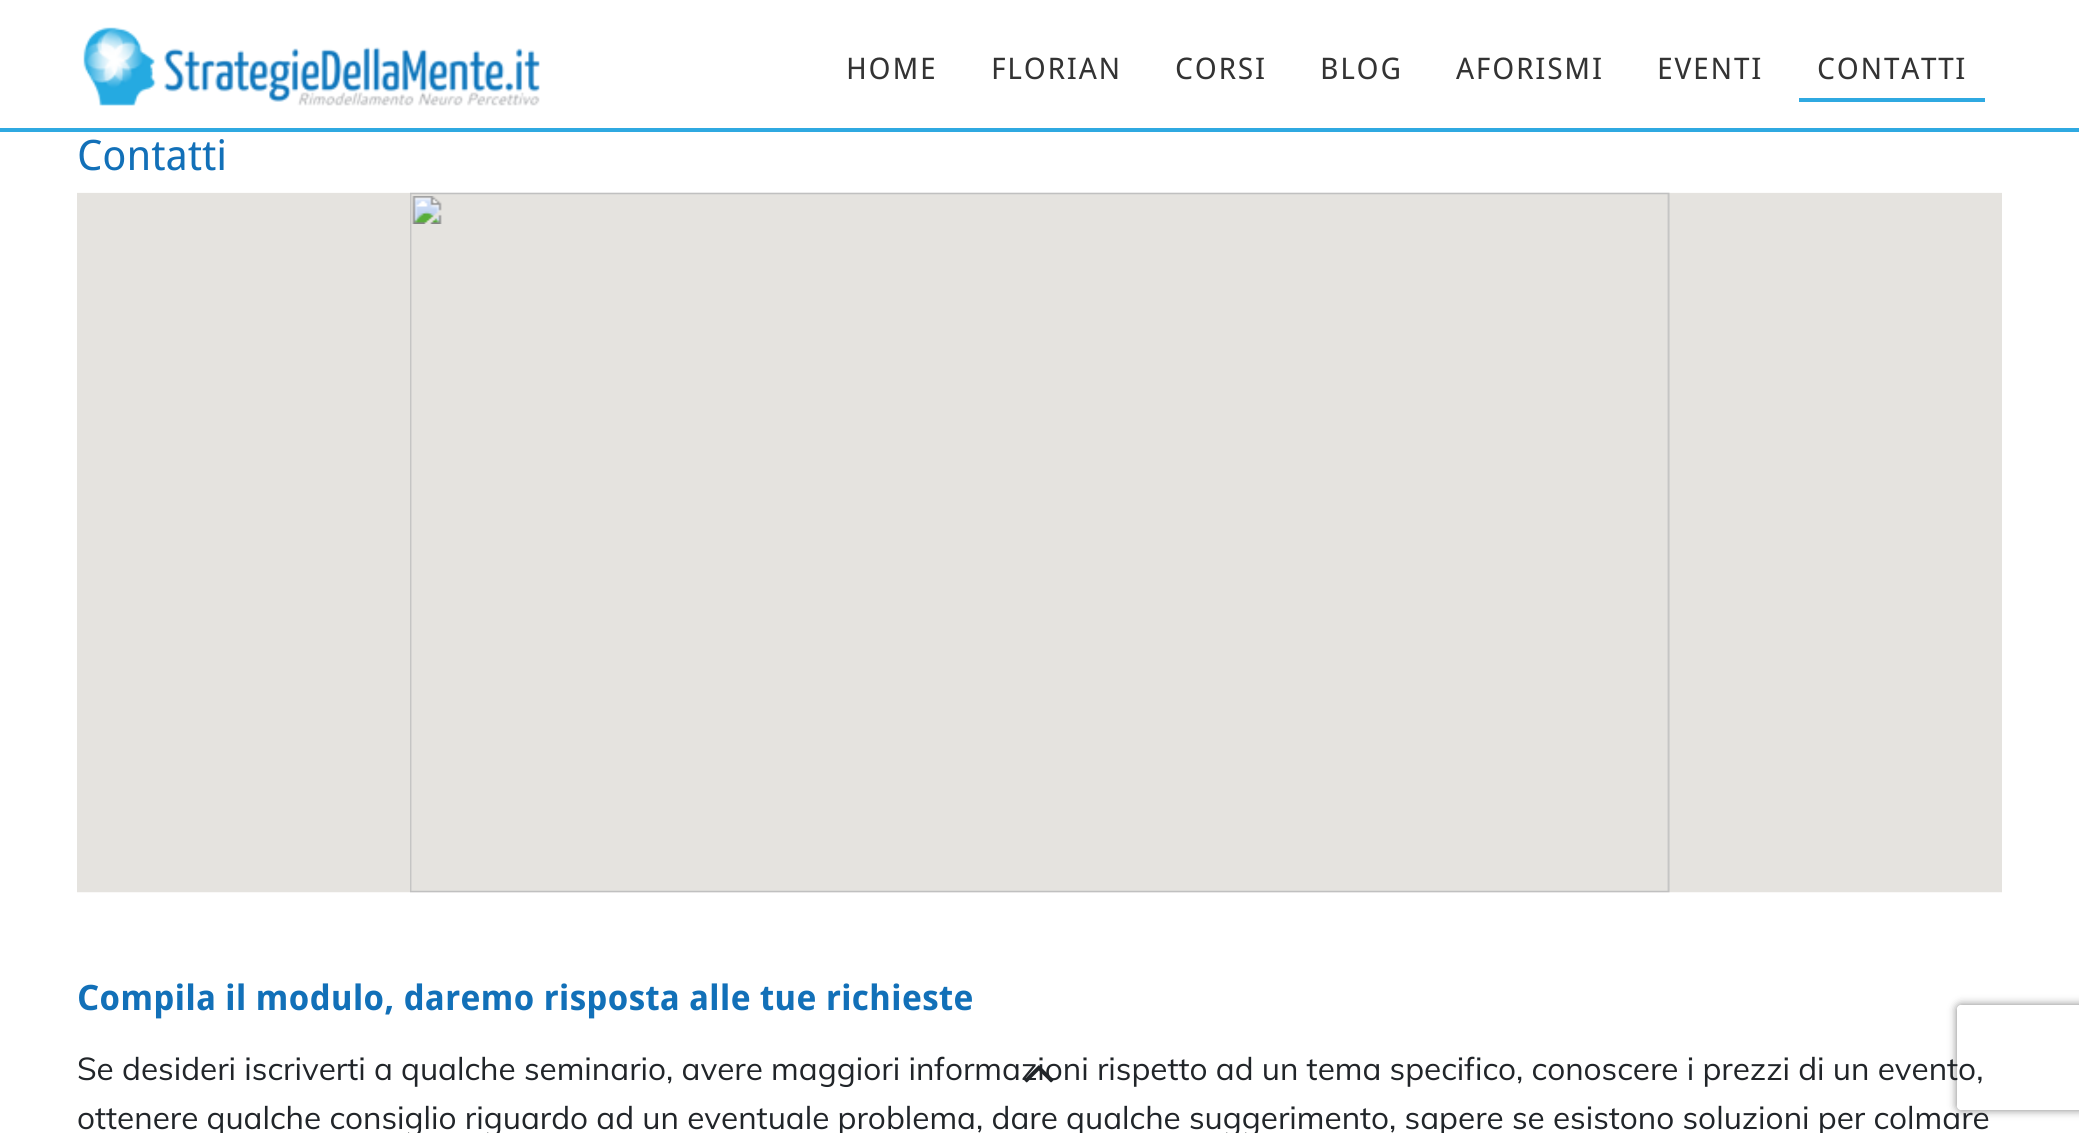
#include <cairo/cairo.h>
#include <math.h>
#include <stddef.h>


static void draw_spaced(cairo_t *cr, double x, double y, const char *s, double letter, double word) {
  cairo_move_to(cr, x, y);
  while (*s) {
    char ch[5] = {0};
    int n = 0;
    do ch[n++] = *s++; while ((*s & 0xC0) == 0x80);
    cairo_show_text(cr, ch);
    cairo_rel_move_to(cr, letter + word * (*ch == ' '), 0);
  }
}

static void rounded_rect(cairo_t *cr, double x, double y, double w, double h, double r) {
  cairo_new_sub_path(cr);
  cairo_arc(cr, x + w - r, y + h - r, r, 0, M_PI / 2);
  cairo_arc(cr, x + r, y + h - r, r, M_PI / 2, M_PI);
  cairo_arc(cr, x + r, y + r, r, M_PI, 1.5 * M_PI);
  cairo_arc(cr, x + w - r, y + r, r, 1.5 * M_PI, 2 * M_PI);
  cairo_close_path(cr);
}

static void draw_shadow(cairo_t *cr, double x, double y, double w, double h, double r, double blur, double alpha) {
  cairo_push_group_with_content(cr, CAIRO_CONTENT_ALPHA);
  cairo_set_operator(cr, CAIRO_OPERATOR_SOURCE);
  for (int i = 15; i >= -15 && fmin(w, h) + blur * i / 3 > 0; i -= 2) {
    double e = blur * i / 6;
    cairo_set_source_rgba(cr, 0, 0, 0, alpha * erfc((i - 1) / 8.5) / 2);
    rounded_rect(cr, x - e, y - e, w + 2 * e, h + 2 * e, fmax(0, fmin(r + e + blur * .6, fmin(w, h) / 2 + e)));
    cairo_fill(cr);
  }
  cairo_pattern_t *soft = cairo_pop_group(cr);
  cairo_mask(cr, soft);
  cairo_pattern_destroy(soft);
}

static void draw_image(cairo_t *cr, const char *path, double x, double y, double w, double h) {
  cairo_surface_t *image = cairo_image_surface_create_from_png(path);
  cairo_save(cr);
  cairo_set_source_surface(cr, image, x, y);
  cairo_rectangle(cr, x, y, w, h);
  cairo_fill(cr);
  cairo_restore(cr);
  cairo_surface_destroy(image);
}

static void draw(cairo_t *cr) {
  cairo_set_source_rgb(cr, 1, 1, 1);
  cairo_paint(cr);
  cairo_set_source_rgb(cr, 47 / 255.0, 169 / 255.0, 225 / 255.0);
  cairo_rectangle(cr, 0, 128, 2079, 4);
  cairo_fill(cr);
  draw_image(cr, "images/1.png", 83, 27, 457, 79);
  cairo_rectangle(cr, 1799, 98, 186, 4);
  cairo_fill(cr);
  draw_image(cr, "images/2.png", 77, 192, 1925, 701);
  cairo_save(cr);
  cairo_set_fill_rule(cr, CAIRO_FILL_RULE_EVEN_ODD);
  cairo_new_path(cr);
  cairo_move_to(cr, 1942, 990);
  cairo_line_to(cr, 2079, 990);
  cairo_line_to(cr, 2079, 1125);
  cairo_line_to(cr, 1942, 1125);
  cairo_close_path(cr);
  cairo_move_to(cr, 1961, 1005);
  cairo_line_to(cr, 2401, 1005);
  cairo_curve_to(cr, 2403, 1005, 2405, 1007, 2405, 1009);
  cairo_line_to(cr, 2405, 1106);
  cairo_curve_to(cr, 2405, 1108, 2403, 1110, 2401, 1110);
  cairo_line_to(cr, 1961, 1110);
  cairo_curve_to(cr, 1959, 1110, 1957, 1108, 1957, 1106);
  cairo_line_to(cr, 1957, 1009);
  cairo_curve_to(cr, 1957, 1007, 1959, 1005, 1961, 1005);
  cairo_close_path(cr);
  cairo_clip(cr);
  cairo_set_source_rgb(cr, 128 / 255.0, 128 / 255.0, 128 / 255.0);
  draw_shadow(cr, 1957, 1005, 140, 105, 4, 4.5, 1);
  cairo_restore(cr);
  cairo_select_font_face(cr, "Droid Sans", CAIRO_FONT_SLANT_NORMAL, CAIRO_FONT_WEIGHT_NORMAL);
  cairo_set_font_size(cr, 29.75);
  cairo_set_source_rgb(cr, 51 / 255.0, 51 / 255.0, 51 / 255.0);
  draw_spaced(cr, 846, 79, "HOME", 1.75, 0);
  draw_spaced(cr, 991, 79, "FLORIAN", 1.75, 0);
  draw_spaced(cr, 1175, 79, "CORSI", 1.75, 0);
  draw_spaced(cr, 1320, 79, "BLOG", 1.75, 0);
  draw_spaced(cr, 1456, 79, "AFORISMI", 1.75, 0);
  draw_spaced(cr, 1657, 79, "EVENTI", 1.75, 0);
  draw_spaced(cr, 1817, 79, "CONTATTI", 1.75, 0);
  cairo_set_font_size(cr, 42);
  cairo_set_source_rgb(cr, 18 / 255.0, 112 / 255.0, 184 / 255.0);
  cairo_move_to(cr, 77, 170);
  cairo_show_text(cr, "Contatti");
  cairo_select_font_face(cr, "Droid Sans", CAIRO_FONT_SLANT_NORMAL, CAIRO_FONT_WEIGHT_BOLD);
  cairo_set_font_size(cr, 35);
  cairo_move_to(cr, 77, 1010);
  cairo_show_text(cr, "Compila il modulo, daremo risposta alle tue richieste");
  cairo_select_font_face(cr, "Muli", CAIRO_FONT_SLANT_NORMAL, CAIRO_FONT_WEIGHT_NORMAL);
  cairo_set_font_size(cr, 31.5);
  cairo_set_source_rgb(cr, 33 / 255.0, 37 / 255.0, 41 / 255.0);
  cairo_move_to(cr, 77, 1080);
  cairo_show_text(cr, "Se desideri iscriverti a qualche seminario, avere maggiori informazioni rispetto ad un tema specifico, conoscere i prezzi di un evento,");
  cairo_move_to(cr, 77, 1129);
  cairo_show_text(cr, "ottenere qualche consiglio riguardo ad un eventuale problema, dare qualche suggerimento, sapere se esistono soluzioni per colmare");
  draw_image(cr, "images/3.png", 1024, 1065, 30, 18);
}

int main(void) {
  cairo_surface_t *surface = cairo_image_surface_create(CAIRO_FORMAT_RGB24, 2079, 1133);
  cairo_t *cr = cairo_create(surface);
  cairo_font_options_t *options = cairo_font_options_create();
  cairo_font_options_set_hint_metrics(options, CAIRO_HINT_METRICS_OFF);
  cairo_font_options_set_hint_style(options, CAIRO_HINT_STYLE_NONE);
  cairo_set_font_options(cr, options);
  cairo_set_miter_limit(cr, 4);
  draw(cr);
  cairo_surface_write_to_png(surface, "out.png");
  cairo_font_options_destroy(options);
  cairo_destroy(cr);
  cairo_surface_destroy(surface);
  return 0;
}
